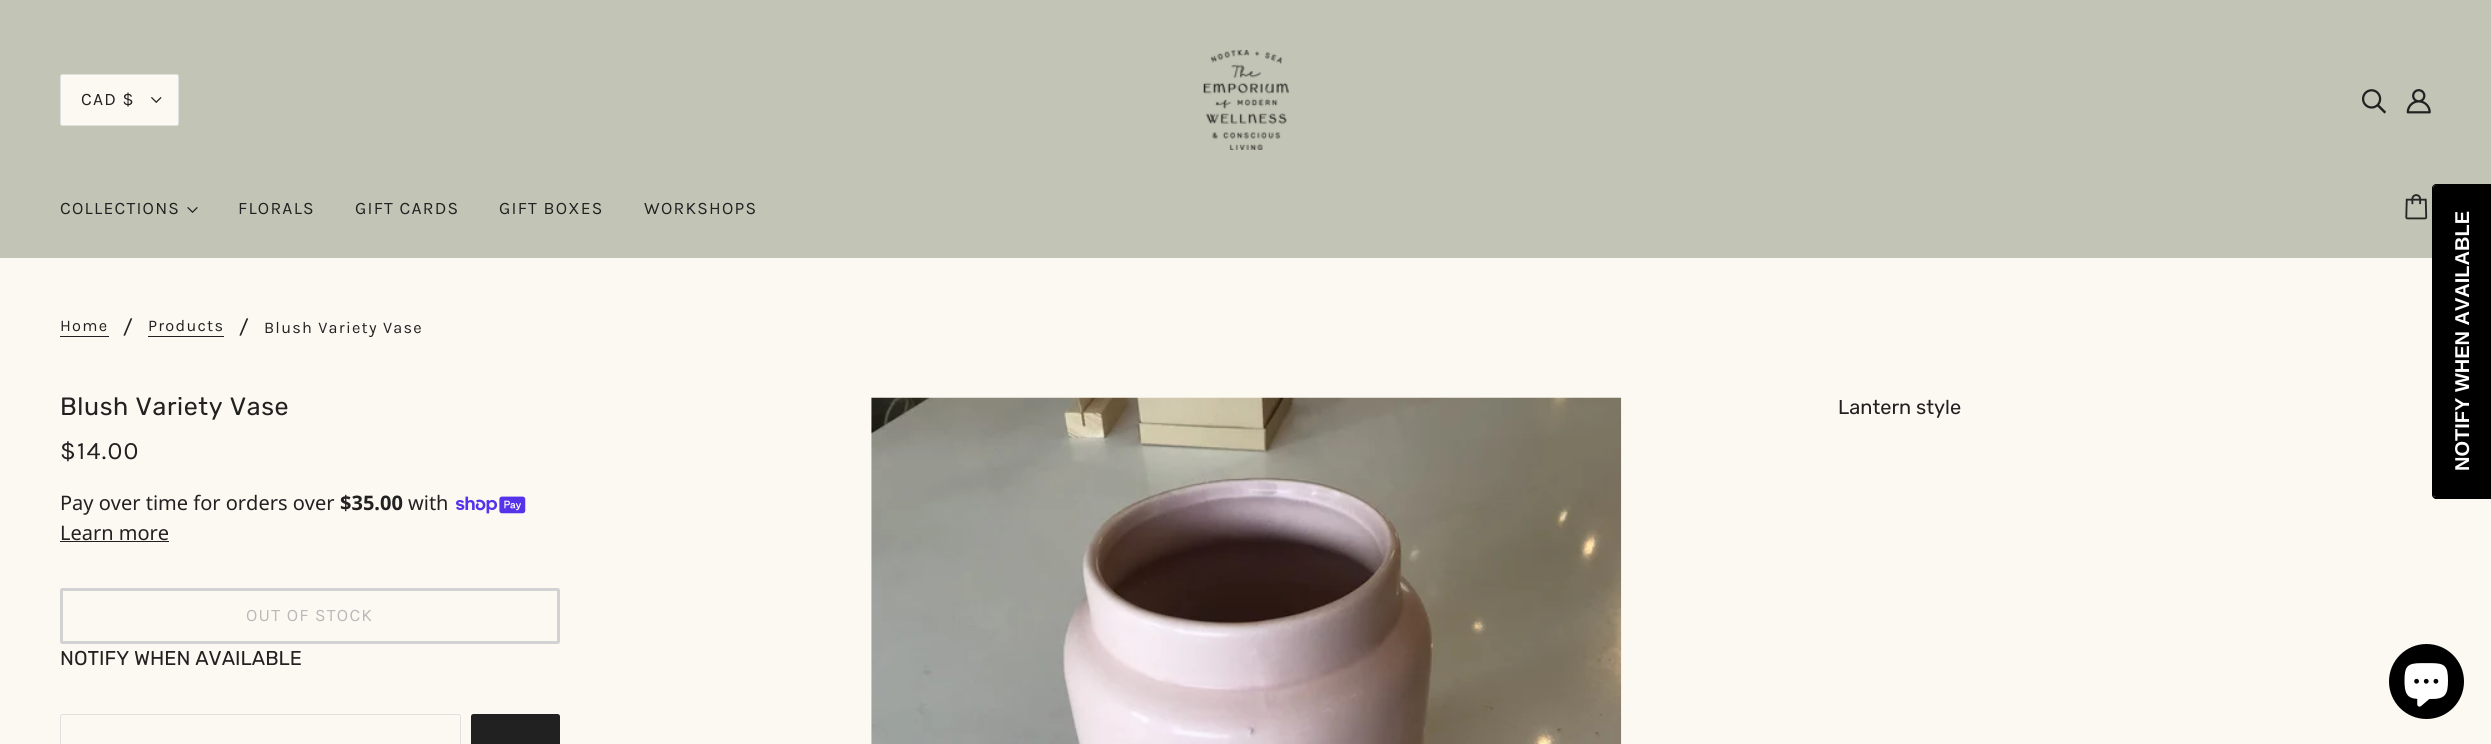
#include <cairo/cairo.h>
#include <math.h>
#include <stddef.h>


static void draw_spaced(cairo_t *cr, double x, double y, const char *s, double letter, double word) {
  cairo_move_to(cr, x, y);
  while (*s) {
    char ch[5] = {0};
    int n = 0;
    do ch[n++] = *s++; while ((*s & 0xC0) == 0x80);
    cairo_show_text(cr, ch);
    cairo_rel_move_to(cr, letter + word * (*ch == ' '), 0);
  }
}

static void rounded_rect(cairo_t *cr, double x, double y, double w, double h, double r) {
  cairo_new_sub_path(cr);
  cairo_arc(cr, x + w - r, y + h - r, r, 0, M_PI / 2);
  cairo_arc(cr, x + r, y + h - r, r, M_PI / 2, M_PI);
  cairo_arc(cr, x + r, y + r, r, M_PI, 1.5 * M_PI);
  cairo_arc(cr, x + w - r, y + r, r, 1.5 * M_PI, 2 * M_PI);
  cairo_close_path(cr);
}

static void draw_image(cairo_t *cr, const char *path, double x, double y, double w, double h) {
  cairo_surface_t *image = cairo_image_surface_create_from_png(path);
  cairo_save(cr);
  cairo_set_source_surface(cr, image, x, y);
  cairo_rectangle(cr, x, y, w, h);
  cairo_fill(cr);
  cairo_restore(cr);
  cairo_surface_destroy(image);
}

static void draw(cairo_t *cr) {
  cairo_set_source_rgb(cr, 252 / 255.0, 248 / 255.0, 242 / 255.0);
  cairo_paint(cr);
  cairo_set_source_rgb(cr, 194 / 255.0, 197 / 255.0, 181 / 255.0);
  cairo_rectangle(cr, 0, 0, 2491, 258);
  cairo_fill(cr);
  cairo_set_source_rgb(cr, 252 / 255.0, 248 / 255.0, 242 / 255.0);
  rounded_rect(cr, 60.5, 74.5, 118, 51, 2);
  cairo_fill_preserve(cr);
  cairo_set_source_rgb(cr, 224 / 255.0, 224 / 255.0, 224 / 255.0);
  cairo_set_line_width(cr, 1);
  cairo_stroke(cr);
  draw_image(cr, "images/1.png", 151, 97, 11, 6);
  draw_image(cr, "images/2.png", 1203, 50, 86, 100);
  draw_image(cr, "images/3.png", 2362, 89, 24, 25);
  draw_image(cr, "images/4.png", 2406, 89, 25, 25);
  draw_image(cr, "images/5.png", 187, 207, 11, 6);
  draw_image(cr, "images/6.png", 2405, 194, 23, 26);
  cairo_set_source_rgb(cr, 33 / 255.0, 33 / 255.0, 33 / 255.0);
  cairo_rectangle(cr, 60, 336, 49, 1);
  cairo_fill(cr);
  cairo_rectangle(cr, 148, 336, 76, 1);
  cairo_fill(cr);
  draw_image(cr, "images/7.png", 871, 397, 751, 347);
  draw_image(cr, "images/8.png", 456, 496, 70, 18);
  cairo_rectangle(cr, 60, 541, 109, 1);
  cairo_fill(cr);
  rounded_rect(cr, 61.5, 589.5, 497, 53, 1);
  cairo_set_source_rgb(cr, 210 / 255.0, 210 / 255.0, 210 / 255.0);
  cairo_set_line_width(cr, 3);
  cairo_stroke(cr);
  rounded_rect(cr, 60.5, 714.5, 400, 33, 2);
  cairo_set_source_rgb(cr, 224 / 255.0, 224 / 255.0, 224 / 255.0);
  cairo_set_line_width(cr, 1);
  cairo_stroke(cr);
  cairo_set_source_rgb(cr, 33 / 255.0, 33 / 255.0, 33 / 255.0);
  rounded_rect(cr, 471, 714, 89, 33, 2.5);
  cairo_fill(cr);
  cairo_set_source_rgb(cr, 0, 0, 0);
  cairo_new_path(cr);
  cairo_move_to(cr, 2433, 495);
  cairo_line_to(cr, 2433, 188);
  cairo_curve_to(cr, 2433, 187, 2434, 185, 2436, 185);
  cairo_line_to(cr, 2491, 185);
  cairo_line_to(cr, 2491, 497);
  cairo_line_to(cr, 2436, 497);
  cairo_curve_to(cr, 2434, 497, 2433, 496, 2433, 495);
  cairo_close_path(cr);
  cairo_fill(cr);
  cairo_set_fill_rule(cr, CAIRO_FILL_RULE_EVEN_ODD);
  cairo_new_path(cr);
  cairo_move_to(cr, 2432, 495);
  cairo_line_to(cr, 2432, 188);
  cairo_curve_to(cr, 2432, 186, 2434, 184, 2436, 184);
  cairo_line_to(cr, 2491, 184);
  cairo_line_to(cr, 2491, 499);
  cairo_line_to(cr, 2436, 499);
  cairo_curve_to(cr, 2434, 499, 2432, 497, 2432, 495);
  cairo_close_path(cr);
  cairo_move_to(cr, 2433, 495);
  cairo_line_to(cr, 2433, 188);
  cairo_curve_to(cr, 2433, 187, 2434, 185, 2436, 185);
  cairo_line_to(cr, 2491, 185);
  cairo_line_to(cr, 2491, 497);
  cairo_line_to(cr, 2436, 497);
  cairo_curve_to(cr, 2434, 497, 2433, 496, 2433, 495);
  cairo_close_path(cr);
  cairo_fill(cr);
  cairo_arc(cr, 2426.5, 681.5, 37.5, 0, 2 * M_PI);
  cairo_fill(cr);
  draw_image(cr, "images/9.png", 2404, 663, 44, 44);
  cairo_select_font_face(cr, "Karla", CAIRO_FONT_SLANT_NORMAL, CAIRO_FONT_WEIGHT_NORMAL);
  cairo_set_font_size(cr, 17.5);
  cairo_set_source_rgb(cr, 33 / 255.0, 33 / 255.0, 33 / 255.0);
  draw_spaced(cr, 81, 105, "CAD $", 1.25, 0);
  draw_spaced(cr, 60, 214, "COLLECTIONS", 1.25, 0);
  draw_spaced(cr, 238, 214, "FLORALS", 1.25, 0);
  draw_spaced(cr, 355, 214, "GIFT CARDS", 1.25, 0);
  draw_spaced(cr, 499, 214, "GIFT BOXES", 1.25, 0);
  draw_spaced(cr, 644, 214, "WORKSHOPS", 1.25, 0);
  cairo_set_font_size(cr, 16.25);
  draw_spaced(cr, 60, 331, "Home", 1.25, 0);
  cairo_select_font_face(cr, "Rubik", CAIRO_FONT_SLANT_NORMAL, CAIRO_FONT_WEIGHT_NORMAL);
  cairo_set_font_size(cr, 20);
  cairo_move_to(cr, 123, 334);
  cairo_show_text(cr, "/");
  cairo_select_font_face(cr, "Karla", CAIRO_FONT_SLANT_NORMAL, CAIRO_FONT_WEIGHT_NORMAL);
  cairo_set_font_size(cr, 16.25);
  draw_spaced(cr, 148, 331, "Products", 1.25, 0);
  cairo_select_font_face(cr, "Rubik", CAIRO_FONT_SLANT_NORMAL, CAIRO_FONT_WEIGHT_NORMAL);
  cairo_set_font_size(cr, 20);
  cairo_move_to(cr, 239, 334);
  cairo_show_text(cr, "/");
  cairo_select_font_face(cr, "Karla", CAIRO_FONT_SLANT_NORMAL, CAIRO_FONT_WEIGHT_NORMAL);
  cairo_set_font_size(cr, 16.25);
  draw_spaced(cr, 264, 333, "Blush Variety Vase", 1.25, 0);
  cairo_select_font_face(cr, "Rubik", CAIRO_FONT_SLANT_NORMAL, CAIRO_FONT_WEIGHT_NORMAL);
  cairo_set_font_size(cr, 25);
  draw_spaced(cr, 60, 415, "Blush Variety Vase", 0.6, 0);
  cairo_set_font_size(cr, 20);
  cairo_move_to(cr, 1838, 414);
  cairo_show_text(cr, "Lantern style");
  cairo_select_font_face(cr, "Karla", CAIRO_FONT_SLANT_NORMAL, CAIRO_FONT_WEIGHT_NORMAL);
  cairo_set_font_size(cr, 25);
  draw_spaced(cr, 60, 459, "$14.00", 1.25, 0);
  cairo_select_font_face(cr, "Noto Sans", CAIRO_FONT_SLANT_NORMAL, CAIRO_FONT_WEIGHT_NORMAL);
  cairo_set_font_size(cr, 20);
  cairo_move_to(cr, 60, 510);
  cairo_show_text(cr, "Pay over time for orders over");
  cairo_select_font_face(cr, "Noto Sans", CAIRO_FONT_SLANT_NORMAL, CAIRO_FONT_WEIGHT_BOLD);
  cairo_move_to(cr, 340, 510);
  cairo_show_text(cr, "$35.00");
  cairo_select_font_face(cr, "Noto Sans", CAIRO_FONT_SLANT_NORMAL, CAIRO_FONT_WEIGHT_NORMAL);
  cairo_move_to(cr, 408, 510);
  cairo_show_text(cr, "with");
  cairo_move_to(cr, 60, 540);
  cairo_show_text(cr, "Learn more");
  cairo_select_font_face(cr, "Karla", CAIRO_FONT_SLANT_NORMAL, CAIRO_FONT_WEIGHT_NORMAL);
  cairo_set_font_size(cr, 17.5);
  cairo_set_source_rgb(cr, 185 / 255.0, 185 / 255.0, 185 / 255.0);
  draw_spaced(cr, 246, 621, "OUT OF STOCK", 1.25, 0);
  cairo_select_font_face(cr, "Rubik", CAIRO_FONT_SLANT_NORMAL, CAIRO_FONT_WEIGHT_NORMAL);
  cairo_set_font_size(cr, 20);
  cairo_set_source_rgb(cr, 33 / 255.0, 33 / 255.0, 33 / 255.0);
  cairo_move_to(cr, 60, 665);
  cairo_show_text(cr, "NOTIFY WHEN AVAILABLE");
  cairo_select_font_face(cr, "Liberation Sans", CAIRO_FONT_SLANT_NORMAL, CAIRO_FONT_WEIGHT_BOLD);
  cairo_set_source_rgb(cr, 1, 1, 1);
  cairo_save(cr);
  cairo_translate(cr, 2469, 471);
  cairo_rotate(cr, -90 * M_PI / 180);
  cairo_move_to(cr, 0, 0);
  cairo_show_text(cr, "NOTIFY WHEN AVAILABLE");
  cairo_restore(cr);
}

int main(void) {
  cairo_surface_t *surface = cairo_image_surface_create(CAIRO_FORMAT_RGB24, 2491, 744);
  cairo_t *cr = cairo_create(surface);
  cairo_font_options_t *options = cairo_font_options_create();
  cairo_font_options_set_hint_metrics(options, CAIRO_HINT_METRICS_OFF);
  cairo_font_options_set_hint_style(options, CAIRO_HINT_STYLE_NONE);
  cairo_set_font_options(cr, options);
  cairo_set_miter_limit(cr, 4);
  draw(cr);
  cairo_surface_write_to_png(surface, "out.png");
  cairo_font_options_destroy(options);
  cairo_destroy(cr);
  cairo_surface_destroy(surface);
  return 0;
}
